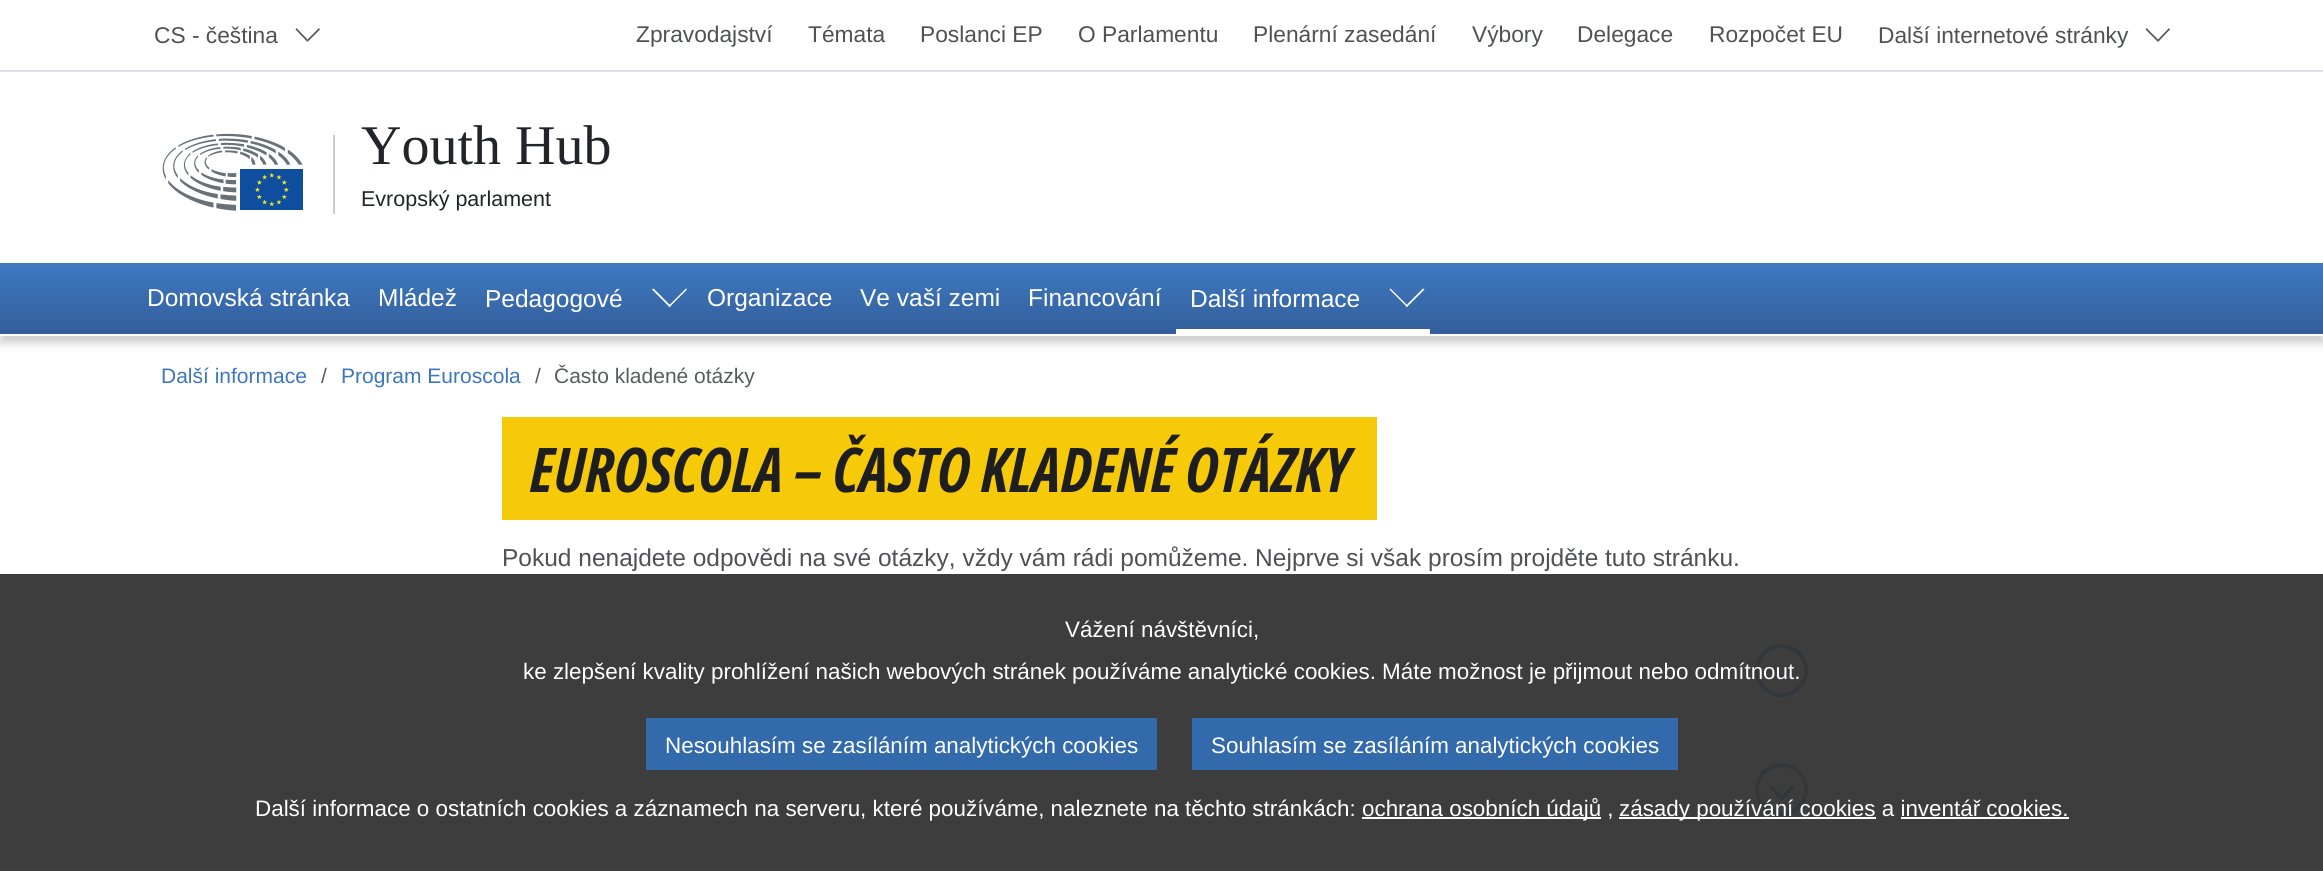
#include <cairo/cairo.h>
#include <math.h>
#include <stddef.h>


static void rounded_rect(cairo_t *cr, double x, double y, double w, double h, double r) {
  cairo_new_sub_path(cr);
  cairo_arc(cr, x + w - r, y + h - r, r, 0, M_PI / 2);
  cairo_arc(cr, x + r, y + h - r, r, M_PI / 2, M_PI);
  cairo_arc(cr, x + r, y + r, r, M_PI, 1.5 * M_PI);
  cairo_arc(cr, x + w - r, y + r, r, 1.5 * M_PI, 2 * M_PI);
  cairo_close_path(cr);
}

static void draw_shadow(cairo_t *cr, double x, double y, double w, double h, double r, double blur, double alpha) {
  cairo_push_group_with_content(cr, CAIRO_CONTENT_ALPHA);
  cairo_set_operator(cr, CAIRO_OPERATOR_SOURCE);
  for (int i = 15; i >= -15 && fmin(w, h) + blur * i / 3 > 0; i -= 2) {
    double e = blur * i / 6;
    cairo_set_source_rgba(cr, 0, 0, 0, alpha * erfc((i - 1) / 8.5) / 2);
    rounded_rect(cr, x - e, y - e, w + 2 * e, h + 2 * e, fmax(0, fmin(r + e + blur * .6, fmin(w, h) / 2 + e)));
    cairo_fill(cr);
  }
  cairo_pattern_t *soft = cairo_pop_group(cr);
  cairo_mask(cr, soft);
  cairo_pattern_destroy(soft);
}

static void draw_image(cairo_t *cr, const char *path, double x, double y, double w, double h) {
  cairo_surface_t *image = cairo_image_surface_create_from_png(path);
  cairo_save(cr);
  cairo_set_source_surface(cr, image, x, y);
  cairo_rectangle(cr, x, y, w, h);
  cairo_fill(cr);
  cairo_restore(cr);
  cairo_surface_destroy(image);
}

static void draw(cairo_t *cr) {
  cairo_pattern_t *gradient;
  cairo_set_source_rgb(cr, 1, 1, 1);
  cairo_paint(cr);
  cairo_set_source_rgb(cr, 61 / 255.0, 61 / 255.0, 61 / 255.0);
  cairo_rectangle(cr, 0, 574, 2323, 297);
  cairo_fill(cr);
  cairo_set_source_rgb(cr, 222 / 255.0, 226 / 255.0, 230 / 255.0);
  cairo_rectangle(cr, 0, 70, 2323, 2);
  cairo_fill(cr);
  cairo_set_source_rgb(cr, 89 / 255.0, 89 / 255.0, 89 / 255.0);
  cairo_new_path(cr);
  cairo_move_to(cr, 320, 29.5);
  cairo_line_to(cr, 307.5, 42);
  cairo_line_to(cr, 307.5, 39.5);
  cairo_line_to(cr, 319, 28);
  cairo_close_path(cr);
  cairo_fill(cr);
  cairo_set_source_rgba(cr, 0, 0, 0, 0.65);
  cairo_new_path(cr);
  cairo_move_to(cr, 307.5, 42);
  cairo_line_to(cr, 295.5, 29.5);
  cairo_line_to(cr, 296.5, 28);
  cairo_line_to(cr, 307.5, 39.5);
  cairo_close_path(cr);
  cairo_fill(cr);
  cairo_set_source_rgb(cr, 89 / 255.0, 89 / 255.0, 89 / 255.0);
  cairo_new_path(cr);
  cairo_move_to(cr, 2170, 29.5);
  cairo_line_to(cr, 2158, 42);
  cairo_line_to(cr, 2158, 39.5);
  cairo_line_to(cr, 2169, 28);
  cairo_close_path(cr);
  cairo_move_to(cr, 2158, 42);
  cairo_line_to(cr, 2145.5, 29.5);
  cairo_line_to(cr, 2146.5, 28);
  cairo_line_to(cr, 2158, 39.5);
  cairo_close_path(cr);
  cairo_fill(cr);
  cairo_set_source_rgb(cr, 204 / 255.0, 204 / 255.0, 204 / 255.0);
  cairo_rectangle(cr, 333, 135, 2, 79);
  cairo_fill(cr);
  draw_image(cr, "images/1.png", 162, 133, 141, 78);
  cairo_set_source_rgb(cr, 0, 0, 0);
  draw_shadow(cr, 0, 270, 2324, 73, 0, 4.5, 0.2);
  gradient = cairo_pattern_create_linear(1162, 262, 1162, 334);
  cairo_pattern_add_color_stop_rgba(gradient, 0, 61 / 255.0, 122 / 255.0, 193 / 255.0, 1);
  cairo_pattern_add_color_stop_rgba(gradient, 1, 52 / 255.0, 94 / 255.0, 156 / 255.0, 1);
  cairo_set_source(cr, gradient);
  cairo_pattern_destroy(gradient);
  cairo_rectangle(cr, 0, 263, 2323, 71);
  cairo_fill(cr);
  cairo_set_source_rgb(cr, 1, 1, 1);
  cairo_rectangle(cr, 0, 334, 2323, 2);
  cairo_fill(cr);
  cairo_new_path(cr);
  cairo_move_to(cr, 686, 288.5);
  cairo_line_to(cr, 687, 289.5);
  cairo_line_to(cr, 669.5, 307);
  cairo_line_to(cr, 668.5, 306);
  cairo_close_path(cr);
  cairo_fill(cr);
  cairo_new_path(cr);
  cairo_move_to(cr, 653.5, 288.5);
  cairo_line_to(cr, 671, 306);
  cairo_line_to(cr, 669.5, 307);
  cairo_line_to(cr, 652, 289.5);
  cairo_close_path(cr);
  cairo_fill(cr);
  cairo_new_path(cr);
  cairo_move_to(cr, 1423, 288.5);
  cairo_line_to(cr, 1424.5, 289.5);
  cairo_line_to(cr, 1407, 307);
  cairo_line_to(cr, 1405.5, 306);
  cairo_close_path(cr);
  cairo_fill(cr);
  cairo_new_path(cr);
  cairo_move_to(cr, 1390.5, 288.5);
  cairo_line_to(cr, 1408, 306);
  cairo_line_to(cr, 1407, 307);
  cairo_line_to(cr, 1389.5, 289.5);
  cairo_close_path(cr);
  cairo_fill(cr);
  cairo_rectangle(cr, 1176, 329, 254, 5);
  cairo_fill(cr);
  cairo_set_source_rgb(cr, 246 / 255.0, 201 / 255.0, 9 / 255.0);
  cairo_rectangle(cr, 502, 417, 875, 103);
  cairo_fill(cr);
  cairo_arc(cr, 1781.5, 670.5, 24.5, 0, 2 * M_PI);
  cairo_set_source_rgb(cr, 51 / 255.0, 54 / 255.0, 58 / 255.0);
  cairo_set_line_width(cr, 4);
  cairo_stroke(cr);
  cairo_new_path(cr);
  cairo_move_to(cr, 1782, 681);
  cairo_line_to(cr, 1769.5, 668.5);
  cairo_line_to(cr, 1772, 666);
  cairo_line_to(cr, 1784.5, 678.5);
  cairo_close_path(cr);
  cairo_fill(cr);
  cairo_new_path(cr);
  cairo_move_to(cr, 1782, 681);
  cairo_line_to(cr, 1779.5, 678.5);
  cairo_line_to(cr, 1792, 666);
  cairo_line_to(cr, 1794.5, 668.5);
  cairo_close_path(cr);
  cairo_fill(cr);
  cairo_arc(cr, 1781.5, 789.5, 24.5, 0, 2 * M_PI);
  cairo_stroke(cr);
  cairo_new_path(cr);
  cairo_move_to(cr, 1782, 800.5);
  cairo_line_to(cr, 1769.5, 788);
  cairo_line_to(cr, 1772, 785.5);
  cairo_line_to(cr, 1784.5, 798);
  cairo_close_path(cr);
  cairo_fill(cr);
  cairo_new_path(cr);
  cairo_move_to(cr, 1782, 800.5);
  cairo_line_to(cr, 1779.5, 798);
  cairo_line_to(cr, 1792, 785.5);
  cairo_line_to(cr, 1794.5, 788);
  cairo_close_path(cr);
  cairo_fill(cr);
  cairo_set_source_rgb(cr, 50 / 255.0, 106 / 255.0, 171 / 255.0);
  cairo_rectangle(cr, 646, 718, 511, 52);
  cairo_fill(cr);
  cairo_rectangle(cr, 1192, 718, 486, 52);
  cairo_fill(cr);
  cairo_set_source_rgb(cr, 1, 1, 1);
  cairo_rectangle(cr, 1362, 817, 239, 2);
  cairo_fill(cr);
  cairo_rectangle(cr, 1619, 817, 257, 2);
  cairo_fill(cr);
  cairo_rectangle(cr, 1901, 817, 168, 2);
  cairo_fill(cr);
  cairo_select_font_face(cr, "Liberation Sans", CAIRO_FONT_SLANT_NORMAL, CAIRO_FONT_WEIGHT_NORMAL);
  cairo_set_font_size(cr, 22.75);
  cairo_set_source_rgb(cr, 80 / 255.0, 81 / 255.0, 84 / 255.0);
  cairo_move_to(cr, 154, 43);
  cairo_show_text(cr, "CS - čeština");
  cairo_move_to(cr, 636, 42);
  cairo_show_text(cr, "Zpravodajství");
  cairo_move_to(cr, 808, 42);
  cairo_show_text(cr, "Témata");
  cairo_move_to(cr, 920, 42);
  cairo_show_text(cr, "Poslanci EP");
  cairo_move_to(cr, 1078, 42);
  cairo_show_text(cr, "O Parlamentu");
  cairo_move_to(cr, 1253, 42);
  cairo_show_text(cr, "Plenární zasedání");
  cairo_move_to(cr, 1472, 42);
  cairo_show_text(cr, "Výbory");
  cairo_move_to(cr, 1577, 42);
  cairo_show_text(cr, "Delegace");
  cairo_move_to(cr, 1709, 42);
  cairo_show_text(cr, "Rozpočet EU");
  cairo_move_to(cr, 1878, 43);
  cairo_show_text(cr, "Další internetové stránky");
  cairo_select_font_face(cr, "Liberation Serif", CAIRO_FONT_SLANT_NORMAL, CAIRO_FONT_WEIGHT_NORMAL);
  cairo_set_font_size(cr, 56);
  cairo_set_source_rgb(cr, 33 / 255.0, 37 / 255.0, 41 / 255.0);
  cairo_move_to(cr, 361, 164);
  cairo_show_text(cr, "Youth Hub");
  cairo_select_font_face(cr, "Liberation Sans", CAIRO_FONT_SLANT_NORMAL, CAIRO_FONT_WEIGHT_NORMAL);
  cairo_set_font_size(cr, 21.5);
  cairo_move_to(cr, 361, 206);
  cairo_show_text(cr, "Evropský parlament");
  cairo_set_font_size(cr, 24.5);
  cairo_set_source_rgb(cr, 1, 1, 1);
  cairo_move_to(cr, 147, 306);
  cairo_show_text(cr, "Domovská stránka");
  cairo_move_to(cr, 378, 306);
  cairo_show_text(cr, "Mládež");
  cairo_move_to(cr, 485, 307);
  cairo_show_text(cr, "Pedagogové");
  cairo_move_to(cr, 707, 306);
  cairo_show_text(cr, "Organizace");
  cairo_move_to(cr, 860, 306);
  cairo_show_text(cr, "Ve vaší zemi");
  cairo_move_to(cr, 1028, 306);
  cairo_show_text(cr, "Financování");
  cairo_move_to(cr, 1190, 307);
  cairo_show_text(cr, "Další informace");
  cairo_set_font_size(cr, 21);
  cairo_set_source_rgb(cr, 60 / 255.0, 119 / 255.0, 189 / 255.0);
  cairo_move_to(cr, 161, 383);
  cairo_show_text(cr, "Další informace");
  cairo_set_source_rgb(cr, 89 / 255.0, 92 / 255.0, 95 / 255.0);
  cairo_move_to(cr, 321, 383);
  cairo_show_text(cr, "/");
  cairo_set_source_rgb(cr, 60 / 255.0, 119 / 255.0, 189 / 255.0);
  cairo_move_to(cr, 341, 383);
  cairo_show_text(cr, "Program Euroscola");
  cairo_set_source_rgb(cr, 89 / 255.0, 92 / 255.0, 95 / 255.0);
  cairo_move_to(cr, 535, 383);
  cairo_show_text(cr, "/");
  cairo_move_to(cr, 554, 383);
  cairo_show_text(cr, "Často kladené otázky");
  cairo_select_font_face(cr, "Open Sans Condensed", CAIRO_FONT_SLANT_ITALIC, CAIRO_FONT_WEIGHT_BOLD);
  cairo_set_font_size(cr, 61.6);
  cairo_set_source_rgb(cr, 30 / 255.0, 30 / 255.0, 31 / 255.0);
  cairo_move_to(cr, 530, 492);
  cairo_show_text(cr, "EUROSCOLA – ČASTO KLADENÉ OTÁZKY");
  cairo_select_font_face(cr, "Liberation Sans", CAIRO_FONT_SLANT_NORMAL, CAIRO_FONT_WEIGHT_NORMAL);
  cairo_set_font_size(cr, 24.5);
  cairo_set_source_rgb(cr, 80 / 255.0, 81 / 255.0, 84 / 255.0);
  cairo_move_to(cr, 502, 566);
  cairo_show_text(cr, "Pokud nenajdete odpovědi na své otázky, vždy vám rádi pomůžeme. Nejprve si však prosím projděte tuto stránku.");
  cairo_set_font_size(cr, 22.4);
  cairo_set_source_rgb(cr, 1, 1, 1);
  cairo_move_to(cr, 1065, 637);
  cairo_show_text(cr, "Vážení návštěvníci,");
  cairo_move_to(cr, 523, 679);
  cairo_show_text(cr, "ke zlepšení kvality prohlížení našich webových stránek používáme analytické cookies. Máte možnost je přijmout nebo odmítnout.");
  cairo_move_to(cr, 665, 753);
  cairo_show_text(cr, "Nesouhlasím se zasíláním analytických cookies");
  cairo_move_to(cr, 1211, 753);
  cairo_show_text(cr, "Souhlasím se zasíláním analytických cookies");
  cairo_move_to(cr, 255, 816);
  cairo_show_text(cr, "Další informace o ostatních cookies a záznamech na serveru, které používáme, naleznete na těchto stránkách:");
  cairo_move_to(cr, 1362, 816);
  cairo_show_text(cr, "ochrana osobních údajů ,");
  cairo_move_to(cr, 1619, 816);
  cairo_show_text(cr, "zásady používání cookies a inventář cookies.");
}

int main(void) {
  cairo_surface_t *surface = cairo_image_surface_create(CAIRO_FORMAT_RGB24, 2323, 871);
  cairo_t *cr = cairo_create(surface);
  cairo_font_options_t *options = cairo_font_options_create();
  cairo_font_options_set_hint_metrics(options, CAIRO_HINT_METRICS_OFF);
  cairo_font_options_set_hint_style(options, CAIRO_HINT_STYLE_NONE);
  cairo_set_font_options(cr, options);
  cairo_set_miter_limit(cr, 4);
  draw(cr);
  cairo_surface_write_to_png(surface, "out.png");
  cairo_font_options_destroy(options);
  cairo_destroy(cr);
  cairo_surface_destroy(surface);
  return 0;
}
